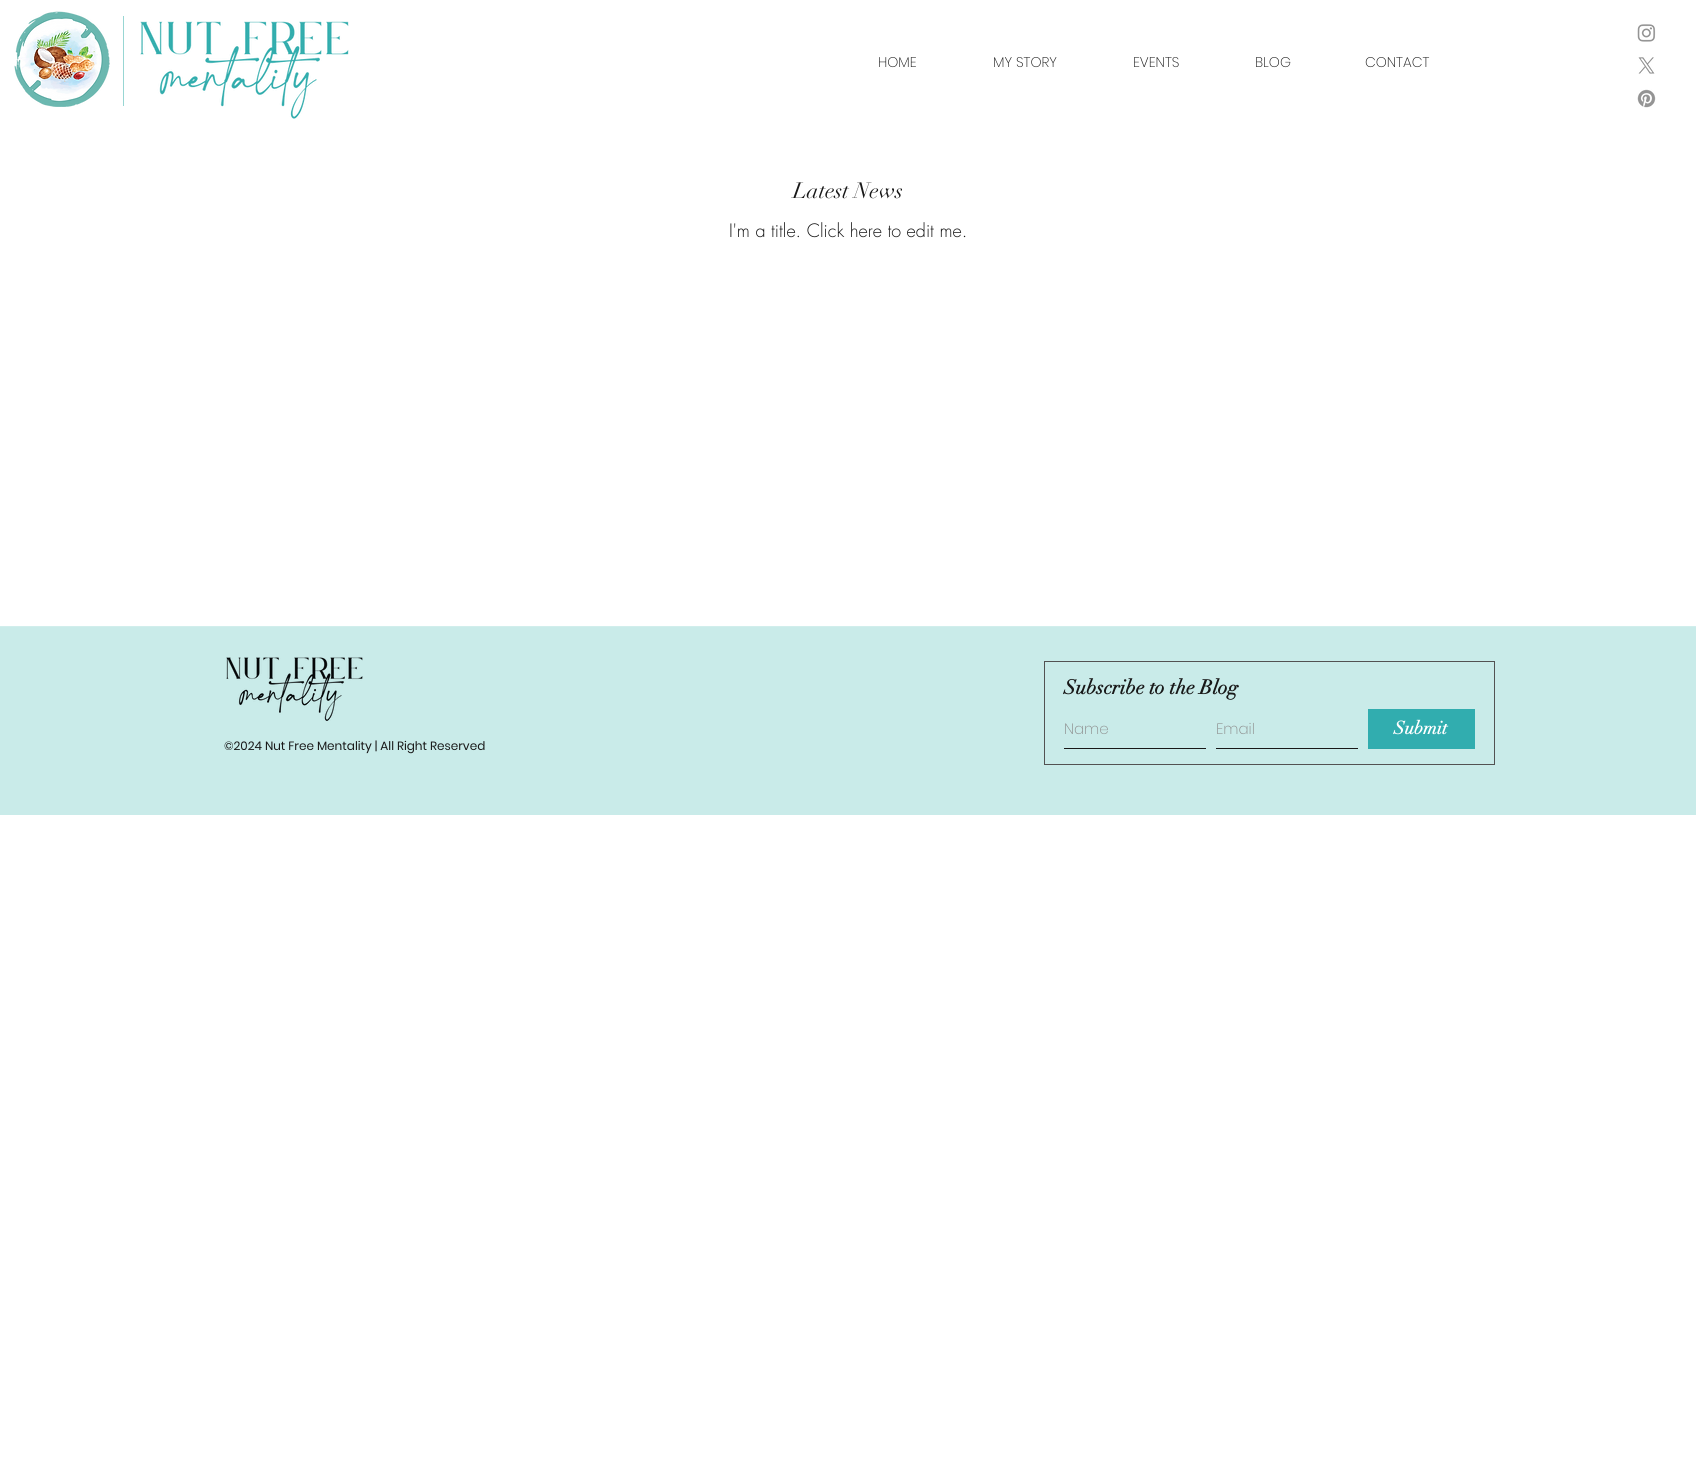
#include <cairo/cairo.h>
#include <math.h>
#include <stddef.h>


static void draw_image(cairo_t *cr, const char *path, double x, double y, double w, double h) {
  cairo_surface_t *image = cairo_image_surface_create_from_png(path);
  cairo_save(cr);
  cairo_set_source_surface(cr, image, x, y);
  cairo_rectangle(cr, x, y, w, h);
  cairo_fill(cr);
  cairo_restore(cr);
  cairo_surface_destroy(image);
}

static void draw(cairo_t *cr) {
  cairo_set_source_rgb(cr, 1, 1, 1);
  cairo_paint(cr);
  draw_image(cr, "images/1.png", 14, 11, 96, 96);
  cairo_set_source_rgb(cr, 152 / 255.0, 214 / 255.0, 211 / 255.0);
  cairo_rectangle(cr, 123, 16, 1, 90);
  cairo_fill(cr);
  draw_image(cr, "images/2.png", 140, 21, 209, 98);
  draw_image(cr, "images/3.png", 1637, 24, 19, 18);
  draw_image(cr, "images/4.png", 1638, 57, 17, 17);
  draw_image(cr, "images/5.png", 1637, 89, 19, 19);
  cairo_set_source_rgb(cr, 201 / 255.0, 235 / 255.0, 233 / 255.0);
  cairo_rectangle(cr, 0, 627, 1696, 188);
  cairo_fill(cr);
  cairo_set_source_rgb(cr, 209 / 255.0, 238 / 255.0, 236 / 255.0);
  cairo_rectangle(cr, 0, 626, 1696, 1);
  cairo_fill(cr);
  cairo_rectangle(cr, 1044.5, 661.5, 450, 103);
  cairo_set_source_rgb(cr, 82 / 255.0, 82 / 255.0, 82 / 255.0);
  cairo_set_line_width(cr, 1);
  cairo_stroke(cr);
  cairo_set_source_rgb(cr, 24 / 255.0, 24 / 255.0, 24 / 255.0);
  cairo_rectangle(cr, 1064, 748, 142, 1);
  cairo_fill(cr);
  cairo_rectangle(cr, 1216, 748, 142, 1);
  cairo_fill(cr);
  cairo_set_source_rgb(cr, 49 / 255.0, 173 / 255.0, 175 / 255.0);
  cairo_rectangle(cr, 1368, 709, 107, 40);
  cairo_fill(cr);
  draw_image(cr, "images/6.png", 226, 657, 137, 64);
  cairo_select_font_face(cr, "Poppins ExtraLight", CAIRO_FONT_SLANT_NORMAL, CAIRO_FONT_WEIGHT_NORMAL);
  cairo_set_font_size(cr, 14);
  cairo_set_source_rgb(cr, 24 / 255.0, 24 / 255.0, 24 / 255.0);
  cairo_move_to(cr, 878, 67);
  cairo_show_text(cr, "HOME");
  cairo_move_to(cr, 993, 67);
  cairo_show_text(cr, "MY STORY");
  cairo_move_to(cr, 1133, 67);
  cairo_show_text(cr, "EVENTS");
  cairo_move_to(cr, 1255, 67);
  cairo_show_text(cr, "BLOG");
  cairo_move_to(cr, 1365, 67);
  cairo_show_text(cr, "CONTACT");
  cairo_select_font_face(cr, "didot", CAIRO_FONT_SLANT_NORMAL, CAIRO_FONT_WEIGHT_NORMAL);
  cairo_set_font_size(cr, 22);
  cairo_move_to(cr, 793, 198);
  cairo_show_text(cr, "Latest News");
  cairo_select_font_face(cr, "futura Light", CAIRO_FONT_SLANT_NORMAL, CAIRO_FONT_WEIGHT_NORMAL);
  cairo_set_font_size(cr, 18);
  cairo_move_to(cr, 729, 237);
  cairo_show_text(cr, "I'm a title. Click here to edit me.");
  cairo_select_font_face(cr, "didot", CAIRO_FONT_SLANT_NORMAL, CAIRO_FONT_WEIGHT_BOLD);
  cairo_set_font_size(cr, 20);
  cairo_move_to(cr, 1064, 694);
  cairo_show_text(cr, "Subscribe to the Blog");
  cairo_select_font_face(cr, "Poppins ExtraLight", CAIRO_FONT_SLANT_NORMAL, CAIRO_FONT_WEIGHT_NORMAL);
  cairo_set_font_size(cr, 15);
  cairo_set_source_rgb(cr, 140 / 255.0, 140 / 255.0, 140 / 255.0);
  cairo_move_to(cr, 1064, 734);
  cairo_show_text(cr, "Name");
  cairo_move_to(cr, 1216, 734);
  cairo_show_text(cr, "Email");
  cairo_select_font_face(cr, "didot", CAIRO_FONT_SLANT_NORMAL, CAIRO_FONT_WEIGHT_BOLD);
  cairo_set_font_size(cr, 18);
  cairo_set_source_rgb(cr, 1, 1, 1);
  cairo_move_to(cr, 1394, 734);
  cairo_show_text(cr, "Submit");
  cairo_select_font_face(cr, "Poppins", CAIRO_FONT_SLANT_NORMAL, CAIRO_FONT_WEIGHT_NORMAL);
  cairo_set_font_size(cr, 12);
  cairo_set_source_rgb(cr, 24 / 255.0, 24 / 255.0, 24 / 255.0);
  cairo_move_to(cr, 224, 750);
  cairo_show_text(cr, "©2024 Nut Free Mentality | All Right Reserved");
}

int main(void) {
  cairo_surface_t *surface = cairo_image_surface_create(CAIRO_FORMAT_RGB24, 1696, 1458);
  cairo_t *cr = cairo_create(surface);
  cairo_font_options_t *options = cairo_font_options_create();
  cairo_font_options_set_hint_metrics(options, CAIRO_HINT_METRICS_OFF);
  cairo_font_options_set_hint_style(options, CAIRO_HINT_STYLE_NONE);
  cairo_set_font_options(cr, options);
  cairo_set_miter_limit(cr, 4);
  draw(cr);
  cairo_surface_write_to_png(surface, "out.png");
  cairo_font_options_destroy(options);
  cairo_destroy(cr);
  cairo_surface_destroy(surface);
  return 0;
}
